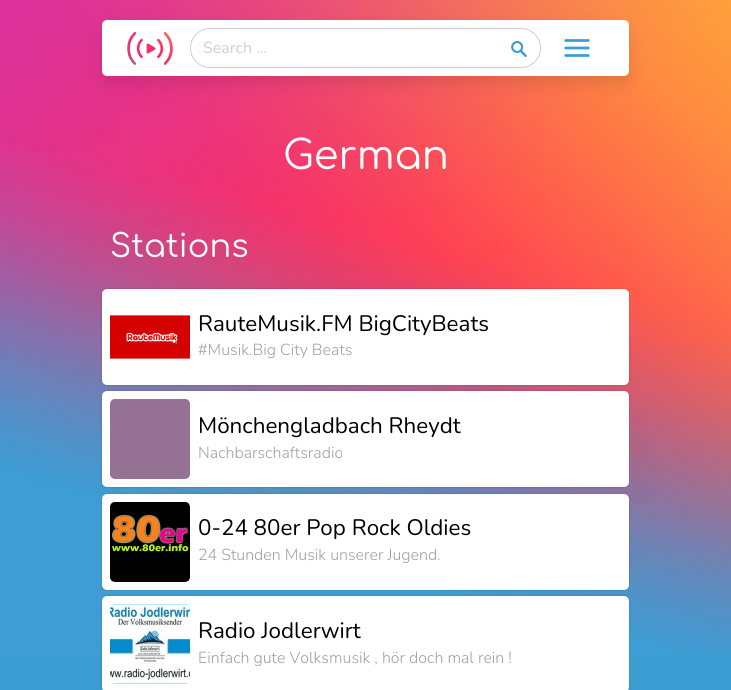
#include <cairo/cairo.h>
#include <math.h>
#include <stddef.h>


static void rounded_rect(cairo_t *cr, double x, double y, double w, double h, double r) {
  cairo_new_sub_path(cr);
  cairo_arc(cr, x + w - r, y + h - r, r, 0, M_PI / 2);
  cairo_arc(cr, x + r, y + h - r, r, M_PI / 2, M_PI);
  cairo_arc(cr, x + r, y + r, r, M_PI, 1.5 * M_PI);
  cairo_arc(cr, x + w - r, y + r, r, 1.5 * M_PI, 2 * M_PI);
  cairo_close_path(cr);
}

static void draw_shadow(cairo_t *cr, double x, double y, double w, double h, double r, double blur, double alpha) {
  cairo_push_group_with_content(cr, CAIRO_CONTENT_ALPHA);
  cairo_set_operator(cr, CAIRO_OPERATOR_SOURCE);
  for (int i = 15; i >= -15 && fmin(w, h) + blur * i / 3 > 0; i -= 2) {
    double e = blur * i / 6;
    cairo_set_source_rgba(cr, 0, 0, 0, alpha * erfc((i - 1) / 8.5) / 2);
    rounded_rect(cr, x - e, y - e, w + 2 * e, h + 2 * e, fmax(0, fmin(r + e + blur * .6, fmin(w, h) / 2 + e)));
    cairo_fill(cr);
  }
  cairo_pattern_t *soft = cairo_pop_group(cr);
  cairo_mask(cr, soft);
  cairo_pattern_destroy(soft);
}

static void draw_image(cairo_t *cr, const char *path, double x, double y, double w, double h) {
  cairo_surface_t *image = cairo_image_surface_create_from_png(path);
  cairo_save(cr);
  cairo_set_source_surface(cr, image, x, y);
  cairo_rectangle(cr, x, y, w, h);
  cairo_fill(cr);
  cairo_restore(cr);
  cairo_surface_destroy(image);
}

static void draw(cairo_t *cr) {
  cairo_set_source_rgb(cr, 60 / 255.0, 157 / 255.0, 211 / 255.0);
  cairo_paint(cr);
  draw_image(cr, "images/1.png", 0, 0, 731, 654);
  cairo_set_source_rgb(cr, 0, 0, 0);
  draw_shadow(cr, 102, 28, 527, 56, 5, 8, 0.1);
  cairo_set_source_rgb(cr, 1, 1, 1);
  rounded_rect(cr, 102, 20, 527, 56, 5);
  cairo_fill(cr);
  draw_image(cr, "images/2.png", 127, 32, 46, 33);
  rounded_rect(cr, 190.5, 28.5, 350, 39, 19.5);
  cairo_set_source_rgb(cr, 208 / 255.0, 208 / 255.0, 208 / 255.0);
  cairo_set_line_width(cr, 1);
  cairo_stroke(cr);
  draw_image(cr, "images/3.png", 511, 41, 16, 16);
  draw_image(cr, "images/4.png", 564, 39, 26, 18);
  cairo_set_source_rgb(cr, 0, 0, 0);
  draw_shadow(cr, 102, 289, 527, 96, 5, 1, 0.2);
  cairo_set_source_rgb(cr, 1, 1, 1);
  rounded_rect(cr, 102, 289, 527, 96, 5);
  cairo_fill(cr);
  draw_image(cr, "images/5.png", 110, 314, 80, 45);
  cairo_set_source_rgb(cr, 0, 0, 0);
  draw_shadow(cr, 102, 391, 527, 96, 5, 1, 0.2);
  cairo_set_source_rgb(cr, 1, 1, 1);
  rounded_rect(cr, 102, 391, 527, 96, 5);
  cairo_fill(cr);
  draw_image(cr, "images/6.png", 110, 399, 80, 80);
  cairo_set_source_rgb(cr, 0, 0, 0);
  draw_shadow(cr, 102, 494, 527, 96, 5, 1, 0.2);
  cairo_set_source_rgb(cr, 1, 1, 1);
  rounded_rect(cr, 102, 494, 527, 96, 5);
  cairo_fill(cr);
  draw_image(cr, "images/7.png", 110, 502, 80, 80);
  cairo_set_source_rgb(cr, 0, 0, 0);
  draw_shadow(cr, 102, 596, 527, 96, 5, 1, 0.2);
  cairo_set_source_rgb(cr, 1, 1, 1);
  rounded_rect(cr, 102, 596, 527, 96, 5);
  cairo_fill(cr);
  draw_image(cr, "images/8.png", 110, 604, 80, 80);
  cairo_select_font_face(cr, "Nunito", CAIRO_FONT_SLANT_NORMAL, CAIRO_FONT_WEIGHT_NORMAL);
  cairo_set_font_size(cr, 16);
  cairo_set_source_rgb(cr, 208 / 255.0, 208 / 255.0, 208 / 255.0);
  cairo_move_to(cr, 203, 53);
  cairo_show_text(cr, "Search ...");
  cairo_select_font_face(cr, "Comfortaa", CAIRO_FONT_SLANT_NORMAL, CAIRO_FONT_WEIGHT_NORMAL);
  cairo_set_font_size(cr, 40);
  cairo_set_source_rgb(cr, 1, 1, 1);
  cairo_move_to(cr, 283, 169);
  cairo_show_text(cr, "German");
  cairo_set_font_size(cr, 32);
  cairo_move_to(cr, 110, 257);
  cairo_show_text(cr, "Stations");
  cairo_select_font_face(cr, "Nunito", CAIRO_FONT_SLANT_NORMAL, CAIRO_FONT_WEIGHT_NORMAL);
  cairo_set_font_size(cr, 22.4);
  cairo_set_source_rgb(cr, 0, 0, 0);
  cairo_move_to(cr, 198, 331);
  cairo_show_text(cr, "RauteMusik.FM BigCityBeats");
  cairo_select_font_face(cr, "Nunito Light", CAIRO_FONT_SLANT_NORMAL, CAIRO_FONT_WEIGHT_NORMAL);
  cairo_set_font_size(cr, 16);
  cairo_set_source_rgb(cr, 160 / 255.0, 160 / 255.0, 160 / 255.0);
  cairo_move_to(cr, 198, 355);
  cairo_show_text(cr, "#Musik.Big City Beats");
  cairo_select_font_face(cr, "Nunito", CAIRO_FONT_SLANT_NORMAL, CAIRO_FONT_WEIGHT_NORMAL);
  cairo_set_font_size(cr, 22.4);
  cairo_set_source_rgb(cr, 0, 0, 0);
  cairo_move_to(cr, 198, 433);
  cairo_show_text(cr, "Mönchengladbach Rheydt");
  cairo_select_font_face(cr, "Nunito Light", CAIRO_FONT_SLANT_NORMAL, CAIRO_FONT_WEIGHT_NORMAL);
  cairo_set_font_size(cr, 16);
  cairo_set_source_rgb(cr, 160 / 255.0, 160 / 255.0, 160 / 255.0);
  cairo_move_to(cr, 198, 458);
  cairo_show_text(cr, "Nachbarschaftsradio");
  cairo_select_font_face(cr, "Nunito", CAIRO_FONT_SLANT_NORMAL, CAIRO_FONT_WEIGHT_NORMAL);
  cairo_set_font_size(cr, 22.4);
  cairo_set_source_rgb(cr, 0, 0, 0);
  cairo_move_to(cr, 198, 535);
  cairo_show_text(cr, "0-24 80er Pop Rock Oldies");
  cairo_select_font_face(cr, "Nunito Light", CAIRO_FONT_SLANT_NORMAL, CAIRO_FONT_WEIGHT_NORMAL);
  cairo_set_font_size(cr, 16);
  cairo_set_source_rgb(cr, 160 / 255.0, 160 / 255.0, 160 / 255.0);
  cairo_move_to(cr, 198, 560);
  cairo_show_text(cr, "24 Stunden Musik unserer Jugend.");
  cairo_select_font_face(cr, "Nunito", CAIRO_FONT_SLANT_NORMAL, CAIRO_FONT_WEIGHT_NORMAL);
  cairo_set_font_size(cr, 22.4);
  cairo_set_source_rgb(cr, 0, 0, 0);
  cairo_move_to(cr, 198, 638);
  cairo_show_text(cr, "Radio Jodlerwirt");
  cairo_select_font_face(cr, "Nunito Light", CAIRO_FONT_SLANT_NORMAL, CAIRO_FONT_WEIGHT_NORMAL);
  cairo_set_font_size(cr, 16);
  cairo_set_source_rgb(cr, 160 / 255.0, 160 / 255.0, 160 / 255.0);
  cairo_move_to(cr, 198, 663);
  cairo_show_text(cr, "Einfach gute Volksmusik , hör doch mal rein !");
}

int main(void) {
  cairo_surface_t *surface = cairo_image_surface_create(CAIRO_FORMAT_RGB24, 731, 690);
  cairo_t *cr = cairo_create(surface);
  cairo_font_options_t *options = cairo_font_options_create();
  cairo_font_options_set_hint_metrics(options, CAIRO_HINT_METRICS_OFF);
  cairo_font_options_set_hint_style(options, CAIRO_HINT_STYLE_NONE);
  cairo_set_font_options(cr, options);
  cairo_set_miter_limit(cr, 4);
  draw(cr);
  cairo_surface_write_to_png(surface, "out.png");
  cairo_font_options_destroy(options);
  cairo_destroy(cr);
  cairo_surface_destroy(surface);
  return 0;
}
